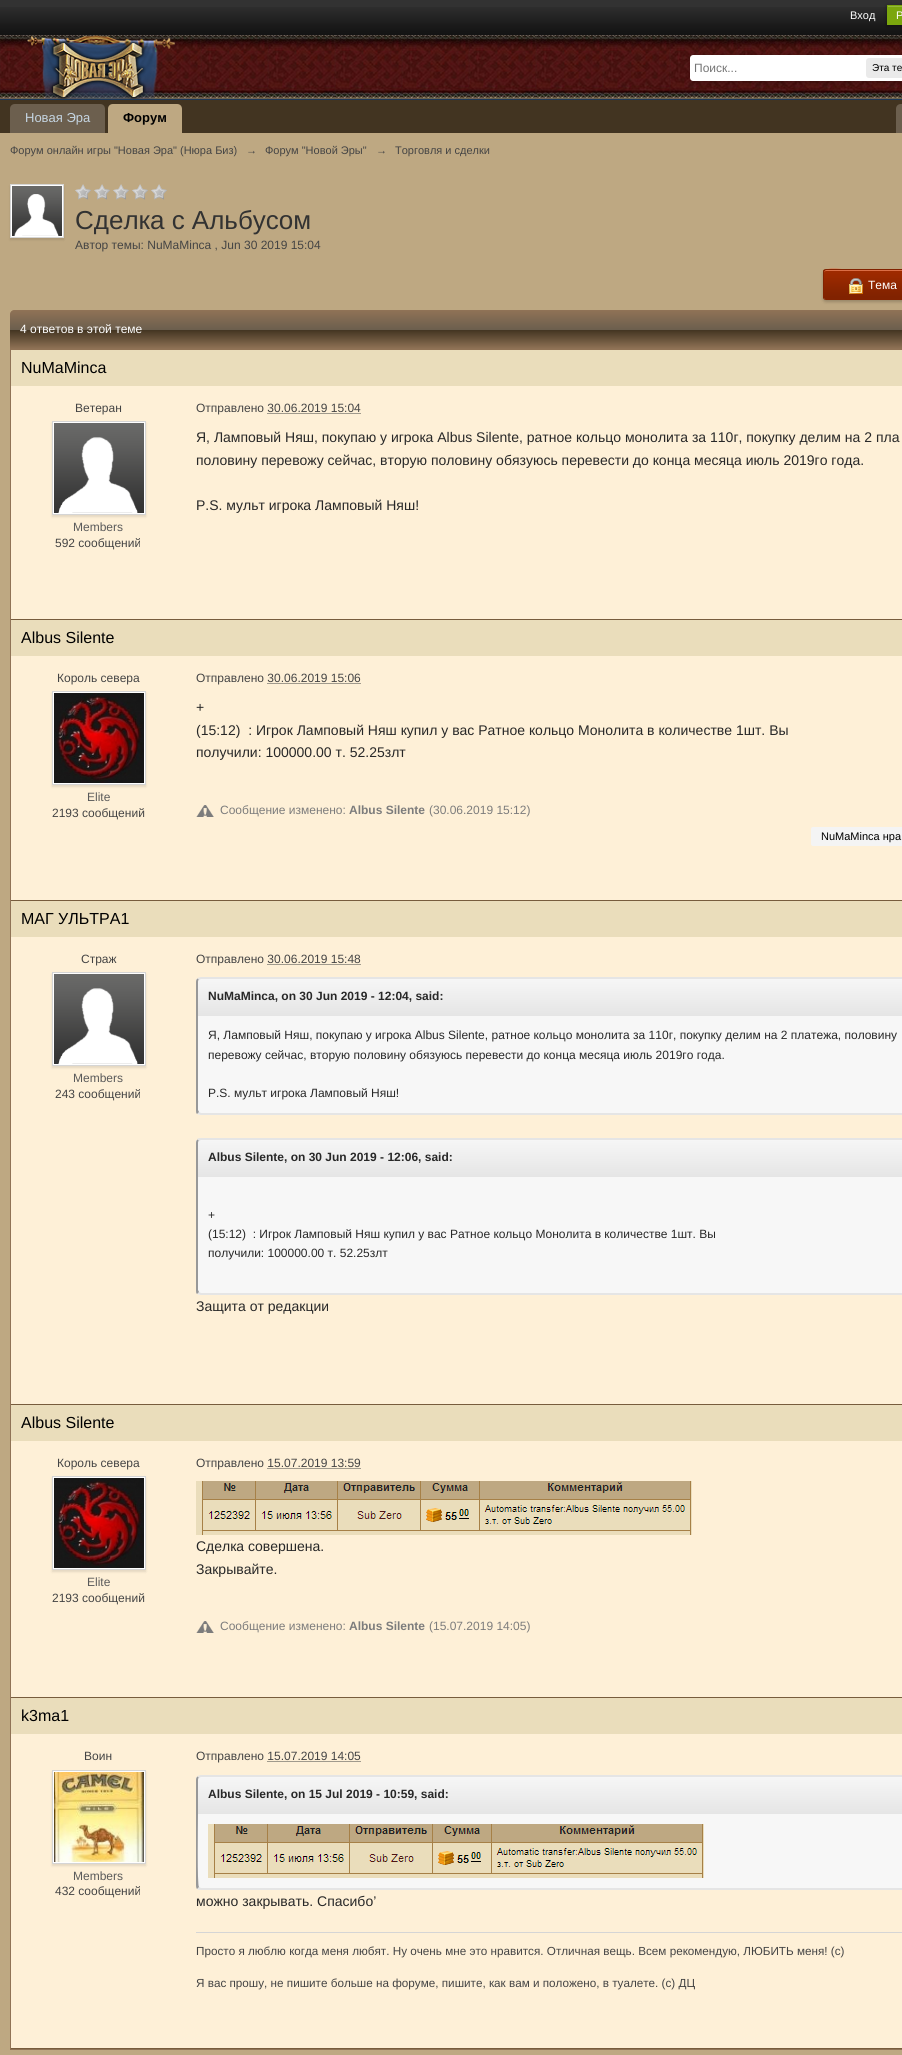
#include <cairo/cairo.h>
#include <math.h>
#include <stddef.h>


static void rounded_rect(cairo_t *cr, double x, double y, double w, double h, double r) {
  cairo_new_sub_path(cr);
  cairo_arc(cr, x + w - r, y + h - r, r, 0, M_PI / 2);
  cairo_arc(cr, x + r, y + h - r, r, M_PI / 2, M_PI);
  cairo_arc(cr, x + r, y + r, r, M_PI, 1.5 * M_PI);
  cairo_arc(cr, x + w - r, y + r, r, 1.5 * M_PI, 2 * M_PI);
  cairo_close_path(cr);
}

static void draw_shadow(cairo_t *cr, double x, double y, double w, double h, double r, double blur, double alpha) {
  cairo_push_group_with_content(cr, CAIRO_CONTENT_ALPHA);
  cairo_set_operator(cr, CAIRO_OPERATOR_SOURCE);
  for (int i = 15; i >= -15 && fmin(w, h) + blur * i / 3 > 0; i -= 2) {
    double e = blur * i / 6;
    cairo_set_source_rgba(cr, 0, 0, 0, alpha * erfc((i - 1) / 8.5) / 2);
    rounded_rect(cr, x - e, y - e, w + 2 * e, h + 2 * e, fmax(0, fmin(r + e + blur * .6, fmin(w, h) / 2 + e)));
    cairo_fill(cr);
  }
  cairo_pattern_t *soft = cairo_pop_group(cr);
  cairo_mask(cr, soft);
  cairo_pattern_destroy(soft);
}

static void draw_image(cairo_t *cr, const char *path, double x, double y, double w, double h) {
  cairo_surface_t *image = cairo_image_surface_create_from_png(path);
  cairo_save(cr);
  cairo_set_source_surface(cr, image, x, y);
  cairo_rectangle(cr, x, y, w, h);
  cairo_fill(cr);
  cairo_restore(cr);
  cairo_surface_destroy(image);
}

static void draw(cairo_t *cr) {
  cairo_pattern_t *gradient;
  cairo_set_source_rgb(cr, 1, 1, 1);
  cairo_paint(cr);
  draw_image(cr, "images/1.png", 0, 35, 902, 64);
  cairo_set_source_rgb(cr, 50 / 255.0, 50 / 255.0, 50 / 255.0);
  cairo_rectangle(cr, 0, 0, 902, 7);
  cairo_fill(cr);
  draw_image(cr, "images/2.png", 0, 7, 902, 28);
  cairo_set_source_rgb(cr, 0, 0, 0);
  draw_shadow(cr, 887, 6, 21, 20, 0, 2, 0.4);
  cairo_set_source_rgb(cr, 123 / 255.0, 166 / 255.0, 13 / 255.0);
  cairo_rectangle(cr, 887, 5, 15, 20);
  cairo_fill(cr);
  cairo_set_source_rgb(cr, 149 / 255.0, 184 / 255.0, 61 / 255.0);
  cairo_rectangle(cr, 888, 6, 14, 1);
  cairo_fill(cr);
  draw_image(cr, "images/3.png", 0, 35, 902, 64);
  cairo_set_source_rgb(cr, 27 / 255.0, 55 / 255.0, 89 / 255.0);
  cairo_rectangle(cr, 0, 99, 902, 1);
  cairo_fill(cr);
  draw_image(cr, "images/4.png", 27, 35, 148, 64);
  cairo_set_source_rgb(cr, 0, 0, 0);
  draw_shadow(cr, 690, 57, 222, 26, 4, 2, 0.2);
  cairo_set_source_rgb(cr, 1, 1, 1);
  cairo_new_path(cr);
  cairo_move_to(cr, 693, 55);
  cairo_line_to(cr, 902, 55);
  cairo_curve_to(cr, 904, 55, 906, 57, 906, 59);
  cairo_line_to(cr, 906, 77);
  cairo_curve_to(cr, 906, 79, 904, 81, 902, 81);
  cairo_line_to(cr, 693, 81);
  cairo_curve_to(cr, 691.5, 81, 690, 79.5, 690, 78);
  cairo_line_to(cr, 690, 58);
  cairo_curve_to(cr, 690, 56.5, 691.5, 55, 693, 55);
  cairo_close_path(cr);
  cairo_fill(cr);
  cairo_set_source_rgb(cr, 234 / 255.0, 234 / 255.0, 234 / 255.0);
  rounded_rect(cr, 866, 58, 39, 20, 3);
  cairo_fill(cr);
  cairo_set_source_rgb(cr, 66 / 255.0, 52 / 255.0, 33 / 255.0);
  cairo_rectangle(cr, 0, 100, 902, 33);
  cairo_fill(cr);
  cairo_set_source_rgb(cr, 108 / 255.0, 95 / 255.0, 78 / 255.0);
  cairo_new_path(cr);
  cairo_move_to(cr, 15, 104);
  cairo_line_to(cr, 100, 104);
  cairo_curve_to(cr, 103, 104, 105, 106, 105, 109);
  cairo_line_to(cr, 105, 133);
  cairo_line_to(cr, 10, 133);
  cairo_line_to(cr, 10, 109);
  cairo_curve_to(cr, 10, 106, 12, 104, 15, 104);
  cairo_close_path(cr);
  cairo_fill(cr);
  cairo_set_source_rgb(cr, 190 / 255.0, 168 / 255.0, 130 / 255.0);
  cairo_new_path(cr);
  cairo_move_to(cr, 113, 104);
  cairo_line_to(cr, 177, 104);
  cairo_curve_to(cr, 180, 104, 182, 106, 182, 109);
  cairo_line_to(cr, 182, 133);
  cairo_line_to(cr, 108, 133);
  cairo_line_to(cr, 108, 109);
  cairo_curve_to(cr, 108, 106, 110, 104, 113, 104);
  cairo_close_path(cr);
  cairo_fill(cr);
  cairo_set_source_rgb(cr, 108 / 255.0, 95 / 255.0, 78 / 255.0);
  cairo_new_path(cr);
  cairo_move_to(cr, 901, 104);
  cairo_line_to(cr, 902, 104);
  cairo_curve_to(cr, 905, 104, 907, 106, 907, 109);
  cairo_line_to(cr, 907, 133);
  cairo_line_to(cr, 896, 133);
  cairo_line_to(cr, 896, 109);
  cairo_curve_to(cr, 896, 106, 898, 104, 901, 104);
  cairo_close_path(cr);
  cairo_fill(cr);
  cairo_set_source_rgb(cr, 190 / 255.0, 168 / 255.0, 130 / 255.0);
  cairo_rectangle(cr, 0, 133, 902, 1922);
  cairo_fill(cr);
  cairo_set_source_rgb(cr, 0, 0, 0);
  draw_shadow(cr, 10, 186, 54, 54, 0, 1, 0.1);
  cairo_set_source_rgb(cr, 1, 1, 1);
  cairo_rectangle(cr, 10.5, 184.5, 53, 53);
  cairo_fill_preserve(cr);
  cairo_set_source_rgb(cr, 213 / 255.0, 213 / 255.0, 213 / 255.0);
  cairo_set_line_width(cr, 1);
  cairo_stroke(cr);
  draw_image(cr, "images/5.png", 12, 186, 50, 50);
  draw_image(cr, "images/6.png", 75, 184, 16, 16);
  draw_image(cr, "images/6.png", 94, 184, 16, 16);
  draw_image(cr, "images/6.png", 113, 184, 16, 16);
  draw_image(cr, "images/6.png", 132, 184, 16, 16);
  draw_image(cr, "images/6.png", 151, 184, 16, 16);
  cairo_set_source_rgb(cr, 0, 0, 0);
  draw_shadow(cr, 823, 271, 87, 31, 3, 1.5, 0.2);
  cairo_set_source_rgb(cr, 129 / 255.0, 34 / 255.0, 0);
  cairo_new_path(cr);
  cairo_move_to(cr, 826, 270);
  cairo_line_to(cr, 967, 270);
  cairo_curve_to(cr, 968, 270, 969, 271, 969, 272);
  cairo_line_to(cr, 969, 297);
  cairo_curve_to(cr, 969, 299, 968, 300, 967, 300);
  cairo_line_to(cr, 826, 300);
  cairo_curve_to(cr, 825, 300, 824, 299, 824, 297);
  cairo_line_to(cr, 824, 272);
  cairo_curve_to(cr, 824, 271, 825, 270, 826, 270);
  cairo_close_path(cr);
  cairo_fill(cr);
  draw_image(cr, "images/7.png", 823, 270, 79, 28);
  cairo_set_source_rgb(cr, 219 / 255.0, 110 / 255.0, 70 / 255.0);
  cairo_new_path(cr);
  cairo_move_to(cr, 826, 271);
  cairo_line_to(cr, 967, 271);
  cairo_curve_to(cr, 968, 271, 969, 272, 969, 273);
  cairo_curve_to(cr, 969, 272, 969, 271, 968, 270);
  cairo_line_to(cr, 850, 270);
  cairo_curve_to(cr, 846, 270, 824, 265, 824, 273);
  cairo_curve_to(cr, 824, 272, 825, 271, 826, 271);
  cairo_close_path(cr);
  cairo_fill(cr);
  cairo_set_source_rgb(cr, 129 / 255.0, 34 / 255.0, 0);
  cairo_set_fill_rule(cr, CAIRO_FILL_RULE_EVEN_ODD);
  cairo_new_path(cr);
  cairo_move_to(cr, 826, 269);
  cairo_line_to(cr, 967, 269);
  cairo_curve_to(cr, 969, 269, 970, 270, 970, 272);
  cairo_line_to(cr, 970, 297);
  cairo_curve_to(cr, 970, 299, 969, 300, 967, 300);
  cairo_line_to(cr, 826, 300);
  cairo_curve_to(cr, 824, 300, 823, 299, 823, 297);
  cairo_line_to(cr, 823, 272);
  cairo_curve_to(cr, 823, 270, 824, 269, 826, 269);
  cairo_close_path(cr);
  cairo_move_to(cr, 826, 270);
  cairo_line_to(cr, 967, 270);
  cairo_curve_to(cr, 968, 270, 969, 271, 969, 272);
  cairo_line_to(cr, 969, 297);
  cairo_curve_to(cr, 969, 299, 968, 300, 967, 300);
  cairo_line_to(cr, 826, 300);
  cairo_curve_to(cr, 825, 300, 824, 299, 824, 297);
  cairo_line_to(cr, 824, 272);
  cairo_curve_to(cr, 824, 271, 825, 270, 826, 270);
  cairo_close_path(cr);
  cairo_fill(cr);
  draw_image(cr, "images/8.png", 849, 278, 14, 16);
  gradient = cairo_pattern_create_linear(490, 310, 490, 349);
  cairo_pattern_add_color_stop_rgba(gradient, 0, 144 / 255.0, 115 / 255.0, 86 / 255.0, 1);
  cairo_pattern_add_color_stop_rgba(gradient, 0.5, 108 / 255.0, 95 / 255.0, 78 / 255.0, 1);
  cairo_pattern_add_color_stop_rgba(gradient, 0.51, 66 / 255.0, 52 / 255.0, 33 / 255.0, 1);
  cairo_pattern_add_color_stop_rgba(gradient, 1, 144 / 255.0, 115 / 255.0, 86 / 255.0, 1);
  cairo_set_source(cr, gradient);
  cairo_pattern_destroy(gradient);
  cairo_new_path(cr);
  cairo_move_to(cr, 14, 310);
  cairo_line_to(cr, 902, 310);
  cairo_curve_to(cr, 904, 310, 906, 312, 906, 314);
  cairo_line_to(cr, 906, 349);
  cairo_line_to(cr, 10, 349);
  cairo_line_to(cr, 10, 314);
  cairo_curve_to(cr, 10, 312, 12, 310, 14, 310);
  cairo_close_path(cr);
  cairo_fill(cr);
  cairo_set_source_rgb(cr, 144 / 255.0, 115 / 255.0, 86 / 255.0);
  cairo_rectangle(cr, 10, 349, 892, 1701);
  cairo_fill(cr);
  cairo_set_source_rgb(cr, 254 / 255.0, 240 / 255.0, 215 / 255.0);
  cairo_rectangle(cr, 11, 386, 891, 1662);
  cairo_fill(cr);
  cairo_set_source_rgb(cr, 119 / 255.0, 92 / 255.0, 61 / 255.0);
  cairo_rectangle(cr, 11, 619, 891, 1);
  cairo_fill(cr);
  cairo_set_source_rgb(cr, 234 / 255.0, 221 / 255.0, 187 / 255.0);
  cairo_rectangle(cr, 11, 350, 891, 36);
  cairo_fill(cr);
  cairo_set_source_rgb(cr, 0, 0, 0);
  draw_shadow(cr, 52, 423, 94, 94, 0, 1, 0.1);
  cairo_set_source_rgb(cr, 1, 1, 1);
  cairo_rectangle(cr, 52.5, 421.5, 93, 93);
  cairo_fill_preserve(cr);
  cairo_set_source_rgb(cr, 213 / 255.0, 213 / 255.0, 213 / 255.0);
  cairo_stroke(cr);
  draw_image(cr, "images/9.png", 54, 423, 90, 90);
  cairo_new_path(cr);
  cairo_move_to(cr, 267.5, 413.5);
  cairo_line_to(cr, 361, 413.5);
  cairo_set_source_rgb(cr, 68 / 255.0, 68 / 255.0, 68 / 255.0);
  cairo_set_dash(cr, (double[]){1, 1}, 2, 0);
  cairo_stroke(cr);
  cairo_set_source_rgb(cr, 119 / 255.0, 92 / 255.0, 61 / 255.0);
  cairo_rectangle(cr, 11, 900, 891, 1);
  cairo_fill(cr);
  cairo_set_source_rgb(cr, 234 / 255.0, 221 / 255.0, 187 / 255.0);
  cairo_rectangle(cr, 11, 620, 891, 36);
  cairo_fill(cr);
  cairo_set_source_rgb(cr, 0, 0, 0);
  draw_shadow(cr, 52, 693, 94, 94, 0, 1, 0.1);
  cairo_set_source_rgb(cr, 1, 1, 1);
  cairo_rectangle(cr, 52.5, 691.5, 93, 93);
  cairo_fill_preserve(cr);
  cairo_set_source_rgb(cr, 213 / 255.0, 213 / 255.0, 213 / 255.0);
  cairo_set_dash(cr, NULL, 0, 0);
  cairo_stroke(cr);
  draw_image(cr, "images/10.png", 54, 693, 90, 90);
  cairo_new_path(cr);
  cairo_move_to(cr, 267.5, 683.5);
  cairo_line_to(cr, 361, 683.5);
  cairo_set_source_rgb(cr, 68 / 255.0, 68 / 255.0, 68 / 255.0);
  cairo_set_dash(cr, (double[]){1, 1}, 2, 0);
  cairo_stroke(cr);
  draw_image(cr, "images/11.png", 196, 805, 18, 12);
  cairo_set_source_rgb(cr, 244 / 255.0, 244 / 255.0, 244 / 255.0);
  rounded_rect(cr, 811, 827, 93, 19, 2);
  cairo_fill(cr);
  cairo_set_source_rgb(cr, 119 / 255.0, 92 / 255.0, 61 / 255.0);
  cairo_rectangle(cr, 11, 1404, 891, 1);
  cairo_fill(cr);
  cairo_set_source_rgb(cr, 234 / 255.0, 221 / 255.0, 187 / 255.0);
  cairo_rectangle(cr, 11, 901, 891, 36);
  cairo_fill(cr);
  cairo_set_source_rgb(cr, 0, 0, 0);
  draw_shadow(cr, 52, 974, 94, 94, 0, 1, 0.1);
  cairo_set_source_rgb(cr, 1, 1, 1);
  cairo_rectangle(cr, 52.5, 972.5, 93, 93);
  cairo_fill_preserve(cr);
  cairo_set_source_rgb(cr, 213 / 255.0, 213 / 255.0, 213 / 255.0);
  cairo_set_dash(cr, NULL, 0, 0);
  cairo_stroke(cr);
  draw_image(cr, "images/12.png", 54, 974, 90, 90);
  cairo_new_path(cr);
  cairo_move_to(cr, 267.5, 964.5);
  cairo_line_to(cr, 361, 964.5);
  cairo_set_source_rgb(cr, 68 / 255.0, 68 / 255.0, 68 / 255.0);
  cairo_set_dash(cr, (double[]){1, 1}, 2, 0);
  cairo_stroke(cr);
  gradient = cairo_pattern_create_linear(198, 979, 198, 1016);
  cairo_pattern_add_color_stop_rgba(gradient, 0, 246 / 255.0, 246 / 255.0, 246 / 255.0, 1);
  cairo_pattern_add_color_stop_rgba(gradient, 1, 229 / 255.0, 229 / 255.0, 229 / 255.0, 1);
  cairo_set_source(cr, gradient);
  cairo_pattern_destroy(gradient);
  cairo_rectangle(cr, 196, 979, 706, 37);
  cairo_fill(cr);
  cairo_set_source_rgb(cr, 229 / 255.0, 229 / 255.0, 229 / 255.0);
  cairo_set_fill_rule(cr, CAIRO_FILL_RULE_WINDING);
  cairo_new_path(cr);
  cairo_move_to(cr, 201, 977);
  cairo_curve_to(cr, 200, 977, 198, 978, 197, 978);
  cairo_line_to(cr, 199, 980);
  cairo_line_to(cr, 201, 979);
  cairo_line_to(cr, 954, 979);
  cairo_line_to(cr, 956, 980);
  cairo_line_to(cr, 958, 978);
  cairo_curve_to(cr, 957, 978, 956, 977, 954, 977);
  cairo_close_path(cr);
  cairo_fill(cr);
  cairo_set_source_rgb(cr, 152 / 255.0, 152 / 255.0, 152 / 255.0);
  cairo_new_path(cr);
  cairo_move_to(cr, 196, 1016);
  cairo_line_to(cr, 198, 1016);
  cairo_line_to(cr, 198, 982);
  cairo_curve_to(cr, 198, 981, 198, 980, 199, 980);
  cairo_line_to(cr, 197.5, 978.5);
  cairo_curve_to(cr, 196.5, 979, 196, 980.5, 196, 982);
  cairo_close_path(cr);
  cairo_fill(cr);
  cairo_set_source_rgb(cr, 247 / 255.0, 247 / 255.0, 247 / 255.0);
  cairo_new_path(cr);
  cairo_move_to(cr, 196, 1016);
  cairo_line_to(cr, 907, 1016);
  cairo_line_to(cr, 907, 1110);
  cairo_curve_to(cr, 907, 1113, 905, 1115, 902, 1115);
  cairo_line_to(cr, 201, 1115);
  cairo_curve_to(cr, 198, 1115, 196, 1113, 196, 1110);
  cairo_close_path(cr);
  cairo_fill(cr);
  cairo_set_source_rgb(cr, 229 / 255.0, 229 / 255.0, 229 / 255.0);
  cairo_new_path(cr);
  cairo_move_to(cr, 201, 1115);
  cairo_line_to(cr, 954, 1115);
  cairo_curve_to(cr, 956, 1115, 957, 1114, 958, 1114);
  cairo_line_to(cr, 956, 1112);
  cairo_line_to(cr, 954, 1113);
  cairo_line_to(cr, 201, 1113);
  cairo_line_to(cr, 199, 1112);
  cairo_line_to(cr, 197, 1114);
  cairo_curve_to(cr, 198, 1114, 200, 1115, 201, 1115);
  cairo_close_path(cr);
  cairo_fill(cr);
  cairo_set_source_rgb(cr, 152 / 255.0, 152 / 255.0, 152 / 255.0);
  cairo_new_path(cr);
  cairo_move_to(cr, 196, 1016);
  cairo_line_to(cr, 198, 1016);
  cairo_line_to(cr, 198, 1110);
  cairo_line_to(cr, 199, 1112);
  cairo_line_to(cr, 197, 1114);
  cairo_curve_to(cr, 196, 1113, 196, 1112, 196, 1110);
  cairo_close_path(cr);
  cairo_fill(cr);
  gradient = cairo_pattern_create_linear(198, 1140, 198, 1177);
  cairo_pattern_add_color_stop_rgba(gradient, 0, 246 / 255.0, 246 / 255.0, 246 / 255.0, 1);
  cairo_pattern_add_color_stop_rgba(gradient, 1, 229 / 255.0, 229 / 255.0, 229 / 255.0, 1);
  cairo_set_source(cr, gradient);
  cairo_pattern_destroy(gradient);
  cairo_rectangle(cr, 196, 1140, 706, 37);
  cairo_fill(cr);
  cairo_set_source_rgb(cr, 229 / 255.0, 229 / 255.0, 229 / 255.0);
  cairo_new_path(cr);
  cairo_move_to(cr, 201, 1138);
  cairo_curve_to(cr, 200, 1138, 198, 1138, 197, 1139);
  cairo_line_to(cr, 199, 1141);
  cairo_line_to(cr, 201, 1140);
  cairo_line_to(cr, 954, 1140);
  cairo_line_to(cr, 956, 1141);
  cairo_line_to(cr, 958, 1139);
  cairo_curve_to(cr, 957, 1138, 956, 1138, 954, 1138);
  cairo_close_path(cr);
  cairo_fill(cr);
  cairo_set_source_rgb(cr, 152 / 255.0, 152 / 255.0, 152 / 255.0);
  cairo_new_path(cr);
  cairo_move_to(cr, 196, 1177);
  cairo_line_to(cr, 198, 1177);
  cairo_line_to(cr, 198, 1143);
  cairo_curve_to(cr, 198, 1142, 198, 1141, 199, 1141);
  cairo_line_to(cr, 197.5, 1139.5);
  cairo_curve_to(cr, 196.5, 1140, 196, 1141.5, 196, 1143);
  cairo_close_path(cr);
  cairo_fill(cr);
  cairo_set_source_rgb(cr, 247 / 255.0, 247 / 255.0, 247 / 255.0);
  cairo_new_path(cr);
  cairo_move_to(cr, 196, 1177);
  cairo_line_to(cr, 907, 1177);
  cairo_line_to(cr, 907, 1290);
  cairo_curve_to(cr, 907, 1293, 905, 1295, 902, 1295);
  cairo_line_to(cr, 201, 1295);
  cairo_curve_to(cr, 198, 1295, 196, 1293, 196, 1290);
  cairo_close_path(cr);
  cairo_fill(cr);
  cairo_set_source_rgb(cr, 229 / 255.0, 229 / 255.0, 229 / 255.0);
  cairo_new_path(cr);
  cairo_move_to(cr, 201, 1295);
  cairo_line_to(cr, 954, 1295);
  cairo_curve_to(cr, 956, 1295, 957, 1294, 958, 1294);
  cairo_line_to(cr, 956, 1292);
  cairo_line_to(cr, 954, 1293);
  cairo_line_to(cr, 201, 1293);
  cairo_line_to(cr, 199, 1292);
  cairo_line_to(cr, 197, 1294);
  cairo_curve_to(cr, 198, 1294, 200, 1295, 201, 1295);
  cairo_close_path(cr);
  cairo_fill(cr);
  cairo_set_source_rgb(cr, 152 / 255.0, 152 / 255.0, 152 / 255.0);
  cairo_new_path(cr);
  cairo_move_to(cr, 196, 1177);
  cairo_line_to(cr, 198, 1177);
  cairo_line_to(cr, 198, 1290);
  cairo_line_to(cr, 199, 1292);
  cairo_line_to(cr, 197, 1294);
  cairo_curve_to(cr, 196, 1293, 196, 1292, 196, 1290);
  cairo_close_path(cr);
  cairo_fill(cr);
  cairo_set_source_rgb(cr, 119 / 255.0, 92 / 255.0, 61 / 255.0);
  cairo_rectangle(cr, 11, 1697, 891, 1);
  cairo_fill(cr);
  cairo_set_source_rgb(cr, 234 / 255.0, 221 / 255.0, 187 / 255.0);
  cairo_rectangle(cr, 11, 1405, 891, 36);
  cairo_fill(cr);
  cairo_set_source_rgb(cr, 0, 0, 0);
  draw_shadow(cr, 52, 1478, 94, 94, 0, 1, 0.1);
  cairo_set_source_rgb(cr, 1, 1, 1);
  cairo_rectangle(cr, 52.5, 1476.5, 93, 93);
  cairo_fill_preserve(cr);
  cairo_set_source_rgb(cr, 213 / 255.0, 213 / 255.0, 213 / 255.0);
  cairo_set_dash(cr, NULL, 0, 0);
  cairo_stroke(cr);
  draw_image(cr, "images/10.png", 54, 1478, 90, 90);
  cairo_new_path(cr);
  cairo_move_to(cr, 267.5, 1468.5);
  cairo_line_to(cr, 361, 1468.5);
  cairo_set_source_rgb(cr, 68 / 255.0, 68 / 255.0, 68 / 255.0);
  cairo_set_dash(cr, (double[]){1, 1}, 2, 0);
  cairo_stroke(cr);
  draw_image(cr, "images/13.png", 196, 1481, 496, 54);
  draw_image(cr, "images/11.png", 196, 1621, 18, 12);
  cairo_set_source_rgb(cr, 119 / 255.0, 92 / 255.0, 61 / 255.0);
  cairo_rectangle(cr, 11, 2048, 891, 1);
  cairo_fill(cr);
  cairo_set_source_rgb(cr, 234 / 255.0, 221 / 255.0, 187 / 255.0);
  cairo_rectangle(cr, 11, 1698, 891, 36);
  cairo_fill(cr);
  cairo_set_source_rgb(cr, 0, 0, 0);
  draw_shadow(cr, 52, 1772, 94, 94, 0, 1, 0.1);
  cairo_set_source_rgb(cr, 1, 1, 1);
  cairo_rectangle(cr, 52.5, 1770.5, 93, 93);
  cairo_fill_preserve(cr);
  cairo_set_source_rgb(cr, 213 / 255.0, 213 / 255.0, 213 / 255.0);
  cairo_set_dash(cr, NULL, 0, 0);
  cairo_stroke(cr);
  draw_image(cr, "images/14.png", 54, 1772, 90, 90);
  cairo_new_path(cr);
  cairo_move_to(cr, 267.5, 1761.5);
  cairo_line_to(cr, 361, 1761.5);
  cairo_set_source_rgb(cr, 68 / 255.0, 68 / 255.0, 68 / 255.0);
  cairo_set_dash(cr, (double[]){1, 1}, 2, 0);
  cairo_stroke(cr);
  gradient = cairo_pattern_create_linear(198, 1777, 198, 1814);
  cairo_pattern_add_color_stop_rgba(gradient, 0, 246 / 255.0, 246 / 255.0, 246 / 255.0, 1);
  cairo_pattern_add_color_stop_rgba(gradient, 1, 229 / 255.0, 229 / 255.0, 229 / 255.0, 1);
  cairo_set_source(cr, gradient);
  cairo_pattern_destroy(gradient);
  cairo_rectangle(cr, 196, 1777, 706, 37);
  cairo_fill(cr);
  cairo_set_source_rgb(cr, 229 / 255.0, 229 / 255.0, 229 / 255.0);
  cairo_new_path(cr);
  cairo_move_to(cr, 201, 1775);
  cairo_curve_to(cr, 200, 1775, 198, 1776, 197, 1776);
  cairo_line_to(cr, 199, 1778);
  cairo_line_to(cr, 201, 1777);
  cairo_line_to(cr, 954, 1777);
  cairo_line_to(cr, 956, 1778);
  cairo_line_to(cr, 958, 1776);
  cairo_curve_to(cr, 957, 1776, 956, 1775, 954, 1775);
  cairo_close_path(cr);
  cairo_fill(cr);
  cairo_set_source_rgb(cr, 152 / 255.0, 152 / 255.0, 152 / 255.0);
  cairo_new_path(cr);
  cairo_move_to(cr, 196, 1814);
  cairo_line_to(cr, 198, 1814);
  cairo_line_to(cr, 198, 1780);
  cairo_curve_to(cr, 198, 1779, 198, 1778, 199, 1778);
  cairo_line_to(cr, 197.5, 1776.5);
  cairo_curve_to(cr, 196.5, 1777, 196, 1778.5, 196, 1780);
  cairo_close_path(cr);
  cairo_fill(cr);
  cairo_set_source_rgb(cr, 247 / 255.0, 247 / 255.0, 247 / 255.0);
  cairo_new_path(cr);
  cairo_move_to(cr, 196, 1814);
  cairo_line_to(cr, 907, 1814);
  cairo_line_to(cr, 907, 1885);
  cairo_curve_to(cr, 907, 1888, 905, 1890, 902, 1890);
  cairo_line_to(cr, 201, 1890);
  cairo_curve_to(cr, 198, 1890, 196, 1888, 196, 1885);
  cairo_close_path(cr);
  cairo_fill(cr);
  cairo_set_source_rgb(cr, 229 / 255.0, 229 / 255.0, 229 / 255.0);
  cairo_new_path(cr);
  cairo_move_to(cr, 201, 1890);
  cairo_line_to(cr, 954, 1890);
  cairo_curve_to(cr, 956, 1890, 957, 1890, 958, 1889);
  cairo_line_to(cr, 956, 1887);
  cairo_line_to(cr, 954, 1888);
  cairo_line_to(cr, 201, 1888);
  cairo_line_to(cr, 199, 1887);
  cairo_line_to(cr, 197, 1889);
  cairo_curve_to(cr, 198, 1890, 200, 1890, 201, 1890);
  cairo_close_path(cr);
  cairo_fill(cr);
  cairo_set_source_rgb(cr, 152 / 255.0, 152 / 255.0, 152 / 255.0);
  cairo_new_path(cr);
  cairo_move_to(cr, 196, 1814);
  cairo_line_to(cr, 198, 1814);
  cairo_curve_to(cr, 198, 1822, 197, 1886, 199, 1887);
  cairo_line_to(cr, 197, 1889);
  cairo_curve_to(cr, 196, 1888, 196, 1886, 196, 1885);
  cairo_close_path(cr);
  cairo_fill(cr);
  draw_image(cr, "images/13.png", 208, 1824, 496, 54);
  cairo_set_source_rgb(cr, 213 / 255.0, 213 / 255.0, 213 / 255.0);
  cairo_rectangle(cr, 196, 1932, 706, 1);
  cairo_fill(cr);
  cairo_select_font_face(cr, "Liberation Sans", CAIRO_FONT_SLANT_NORMAL, CAIRO_FONT_WEIGHT_NORMAL);
  cairo_set_font_size(cr, 11);
  cairo_set_source_rgb(cr, 1, 1, 1);
  cairo_move_to(cr, 850, 19);
  cairo_show_text(cr, "Вход");
  cairo_move_to(cr, 896, 19);
  cairo_show_text(cr, "Р");
  cairo_set_font_size(cr, 12);
  cairo_set_source_rgb(cr, 117 / 255.0, 117 / 255.0, 117 / 255.0);
  cairo_move_to(cr, 694, 72);
  cairo_show_text(cr, "Поиск...");
  cairo_set_font_size(cr, 10);
  cairo_set_source_rgb(cr, 0, 0, 0);
  cairo_move_to(cr, 872, 71);
  cairo_show_text(cr, "Эта те");
  cairo_set_font_size(cr, 13);
  cairo_set_source_rgb(cr, 197 / 255.0, 213 / 255.0, 226 / 255.0);
  cairo_move_to(cr, 25, 122);
  cairo_show_text(cr, "Новая Эра");
  cairo_select_font_face(cr, "Liberation Sans", CAIRO_FONT_SLANT_NORMAL, CAIRO_FONT_WEIGHT_BOLD);
  cairo_set_source_rgb(cr, 0, 0, 0);
  cairo_move_to(cr, 123, 122);
  cairo_show_text(cr, "Форум");
  cairo_select_font_face(cr, "Liberation Sans", CAIRO_FONT_SLANT_NORMAL, CAIRO_FONT_WEIGHT_NORMAL);
  cairo_set_font_size(cr, 11);
  cairo_set_source_rgb(cr, 68 / 255.0, 68 / 255.0, 68 / 255.0);
  cairo_move_to(cr, 10, 154);
  cairo_show_text(cr, "Форум онлайн игры \"Новая Эра\" (Нюра Биз)");
  cairo_move_to(cr, 246, 154);
  cairo_show_text(cr, "→");
  cairo_move_to(cr, 265, 154);
  cairo_show_text(cr, "Форум \"Новой Эры\"");
  cairo_move_to(cr, 376, 154);
  cairo_show_text(cr, "→");
  cairo_move_to(cr, 395, 154);
  cairo_show_text(cr, "Торговля и сделки");
  cairo_set_font_size(cr, 26);
  cairo_set_source_rgb(cr, 50 / 255.0, 50 / 255.0, 50 / 255.0);
  cairo_move_to(cr, 75, 229);
  cairo_show_text(cr, "Сделка с Альбусом");
  cairo_set_font_size(cr, 12);
  cairo_set_source_rgb(cr, 68 / 255.0, 68 / 255.0, 68 / 255.0);
  cairo_move_to(cr, 75, 249);
  cairo_show_text(cr, "Автор темы: NuMaMinca , Jun 30 2019 15:04");
  cairo_set_source_rgb(cr, 1, 1, 1);
  cairo_move_to(cr, 868, 289);
  cairo_show_text(cr, "Тема");
  cairo_move_to(cr, 20, 333);
  cairo_show_text(cr, "4 ответов в этой теме");
  cairo_set_font_size(cr, 16);
  cairo_set_source_rgb(cr, 0, 0, 0);
  cairo_move_to(cr, 21, 373);
  cairo_show_text(cr, "NuMaMinca");
  cairo_set_font_size(cr, 12);
  cairo_set_source_rgb(cr, 68 / 255.0, 68 / 255.0, 68 / 255.0);
  cairo_move_to(cr, 75, 412);
  cairo_show_text(cr, "Ветеран");
  cairo_set_source_rgb(cr, 90 / 255.0, 90 / 255.0, 90 / 255.0);
  cairo_move_to(cr, 73, 531);
  cairo_show_text(cr, "Members");
  cairo_set_source_rgb(cr, 68 / 255.0, 68 / 255.0, 68 / 255.0);
  cairo_move_to(cr, 55, 547);
  cairo_show_text(cr, "592 сообщений");
  cairo_move_to(cr, 196, 412);
  cairo_show_text(cr, "Отправлено 30.06.2019 15:04");
  cairo_set_font_size(cr, 14);
  cairo_set_source_rgb(cr, 40 / 255.0, 40 / 255.0, 40 / 255.0);
  cairo_move_to(cr, 196, 442);
  cairo_show_text(cr, "Я, Ламповый Няш, покупаю у игрока Albus Silente, ратное кольцо монолита за 110г, покупку делим на 2 пла");
  cairo_move_to(cr, 196, 465);
  cairo_show_text(cr, "половину перевожу сейчас, вторую половину обязуюсь перевести до конца месяца июль 2019го года.");
  cairo_move_to(cr, 196, 510);
  cairo_show_text(cr, "P.S. мульт игрока Ламповый Няш!");
  cairo_set_font_size(cr, 16);
  cairo_set_source_rgb(cr, 0, 0, 0);
  cairo_move_to(cr, 21, 643);
  cairo_show_text(cr, "Albus Silente");
  cairo_set_font_size(cr, 12);
  cairo_set_source_rgb(cr, 68 / 255.0, 68 / 255.0, 68 / 255.0);
  cairo_move_to(cr, 57, 682);
  cairo_show_text(cr, "Король севера");
  cairo_set_source_rgb(cr, 90 / 255.0, 90 / 255.0, 90 / 255.0);
  cairo_move_to(cr, 87, 801);
  cairo_show_text(cr, "Elite");
  cairo_set_source_rgb(cr, 68 / 255.0, 68 / 255.0, 68 / 255.0);
  cairo_move_to(cr, 52, 817);
  cairo_show_text(cr, "2193 сообщений");
  cairo_move_to(cr, 196, 682);
  cairo_show_text(cr, "Отправлено 30.06.2019 15:06");
  cairo_set_font_size(cr, 14);
  cairo_set_source_rgb(cr, 40 / 255.0, 40 / 255.0, 40 / 255.0);
  cairo_move_to(cr, 196, 712);
  cairo_show_text(cr, "+");
  cairo_move_to(cr, 196, 735);
  cairo_show_text(cr, "(15:12)  : Игрок Ламповый Няш купил у вас Ратное кольцо Монолита в количестве 1шт. Вы");
  cairo_move_to(cr, 196, 757);
  cairo_show_text(cr, "получили: 100000.00 т. 52.25злт");
  cairo_set_font_size(cr, 12);
  cairo_set_source_rgb(cr, 124 / 255.0, 124 / 255.0, 124 / 255.0);
  cairo_move_to(cr, 220, 814);
  cairo_show_text(cr, "Сообщение изменено:");
  cairo_select_font_face(cr, "Liberation Sans", CAIRO_FONT_SLANT_NORMAL, CAIRO_FONT_WEIGHT_BOLD);
  cairo_move_to(cr, 349, 814);
  cairo_show_text(cr, "Albus Silente");
  cairo_select_font_face(cr, "Liberation Sans", CAIRO_FONT_SLANT_NORMAL, CAIRO_FONT_WEIGHT_NORMAL);
  cairo_move_to(cr, 429, 814);
  cairo_show_text(cr, "(30.06.2019 15:12)");
  cairo_set_font_size(cr, 11);
  cairo_set_source_rgb(cr, 0, 0, 0);
  cairo_move_to(cr, 821, 840);
  cairo_show_text(cr, "NuMaMinca нра");
  cairo_set_font_size(cr, 16);
  cairo_move_to(cr, 21, 924);
  cairo_show_text(cr, "МАГ УЛЬТРА1");
  cairo_set_font_size(cr, 12);
  cairo_set_source_rgb(cr, 68 / 255.0, 68 / 255.0, 68 / 255.0);
  cairo_move_to(cr, 81, 963);
  cairo_show_text(cr, "Страж");
  cairo_set_source_rgb(cr, 90 / 255.0, 90 / 255.0, 90 / 255.0);
  cairo_move_to(cr, 73, 1082);
  cairo_show_text(cr, "Members");
  cairo_set_source_rgb(cr, 68 / 255.0, 68 / 255.0, 68 / 255.0);
  cairo_move_to(cr, 55, 1098);
  cairo_show_text(cr, "243 сообщений");
  cairo_move_to(cr, 196, 963);
  cairo_show_text(cr, "Отправлено 30.06.2019 15:48");
  cairo_select_font_face(cr, "Liberation Sans", CAIRO_FONT_SLANT_NORMAL, CAIRO_FONT_WEIGHT_BOLD);
  cairo_set_source_rgb(cr, 40 / 255.0, 40 / 255.0, 40 / 255.0);
  cairo_move_to(cr, 208, 1000);
  cairo_show_text(cr, "NuMaMinca, on 30 Jun 2019 - 12:04, said:");
  cairo_select_font_face(cr, "Liberation Sans", CAIRO_FONT_SLANT_NORMAL, CAIRO_FONT_WEIGHT_NORMAL);
  cairo_move_to(cr, 208, 1039);
  cairo_show_text(cr, "Я, Ламповый Няш, покупаю у игрока Albus Silente, ратное кольцо монолита за 110г, покупку делим на 2 платежа, половину");
  cairo_move_to(cr, 208, 1059);
  cairo_show_text(cr, "перевожу сейчас, вторую половину обязуюсь перевести до конца месяца июль 2019го года.");
  cairo_move_to(cr, 208, 1097);
  cairo_show_text(cr, "P.S. мульт игрока Ламповый Няш!");
  cairo_select_font_face(cr, "Liberation Sans", CAIRO_FONT_SLANT_NORMAL, CAIRO_FONT_WEIGHT_BOLD);
  cairo_move_to(cr, 208, 1161);
  cairo_show_text(cr, "Albus Silente, on 30 Jun 2019 - 12:06, said:");
  cairo_select_font_face(cr, "Liberation Sans", CAIRO_FONT_SLANT_NORMAL, CAIRO_FONT_WEIGHT_NORMAL);
  cairo_move_to(cr, 208, 1219);
  cairo_show_text(cr, "+");
  cairo_move_to(cr, 208, 1238);
  cairo_show_text(cr, "(15:12)  : Игрок Ламповый Няш купил у вас Ратное кольцо Монолита в количестве 1шт. Вы");
  cairo_move_to(cr, 208, 1257);
  cairo_show_text(cr, "получили: 100000.00 т. 52.25злт");
  cairo_set_font_size(cr, 14);
  cairo_move_to(cr, 196, 1311);
  cairo_show_text(cr, "Защита от редакции");
  cairo_set_font_size(cr, 16);
  cairo_set_source_rgb(cr, 0, 0, 0);
  cairo_move_to(cr, 21, 1428);
  cairo_show_text(cr, "Albus Silente");
  cairo_set_font_size(cr, 12);
  cairo_set_source_rgb(cr, 68 / 255.0, 68 / 255.0, 68 / 255.0);
  cairo_move_to(cr, 57, 1467);
  cairo_show_text(cr, "Король севера");
  cairo_set_source_rgb(cr, 90 / 255.0, 90 / 255.0, 90 / 255.0);
  cairo_move_to(cr, 87, 1586);
  cairo_show_text(cr, "Elite");
  cairo_set_source_rgb(cr, 68 / 255.0, 68 / 255.0, 68 / 255.0);
  cairo_move_to(cr, 52, 1602);
  cairo_show_text(cr, "2193 сообщений");
  cairo_move_to(cr, 196, 1467);
  cairo_show_text(cr, "Отправлено 15.07.2019 13:59");
  cairo_set_font_size(cr, 14);
  cairo_set_source_rgb(cr, 40 / 255.0, 40 / 255.0, 40 / 255.0);
  cairo_move_to(cr, 196, 1551);
  cairo_show_text(cr, "Сделка совершена.");
  cairo_move_to(cr, 196, 1574);
  cairo_show_text(cr, "Закрывайте.");
  cairo_set_font_size(cr, 12);
  cairo_set_source_rgb(cr, 124 / 255.0, 124 / 255.0, 124 / 255.0);
  cairo_move_to(cr, 220, 1630);
  cairo_show_text(cr, "Сообщение изменено:");
  cairo_select_font_face(cr, "Liberation Sans", CAIRO_FONT_SLANT_NORMAL, CAIRO_FONT_WEIGHT_BOLD);
  cairo_move_to(cr, 349, 1630);
  cairo_show_text(cr, "Albus Silente");
  cairo_select_font_face(cr, "Liberation Sans", CAIRO_FONT_SLANT_NORMAL, CAIRO_FONT_WEIGHT_NORMAL);
  cairo_move_to(cr, 429, 1630);
  cairo_show_text(cr, "(15.07.2019 14:05)");
  cairo_set_font_size(cr, 16);
  cairo_set_source_rgb(cr, 0, 0, 0);
  cairo_move_to(cr, 21, 1721);
  cairo_show_text(cr, "k3ma1");
  cairo_set_font_size(cr, 12);
  cairo_set_source_rgb(cr, 68 / 255.0, 68 / 255.0, 68 / 255.0);
  cairo_move_to(cr, 84, 1760);
  cairo_show_text(cr, "Воин");
  cairo_set_source_rgb(cr, 90 / 255.0, 90 / 255.0, 90 / 255.0);
  cairo_move_to(cr, 73, 1880);
  cairo_show_text(cr, "Members");
  cairo_set_source_rgb(cr, 68 / 255.0, 68 / 255.0, 68 / 255.0);
  cairo_move_to(cr, 55, 1895);
  cairo_show_text(cr, "432 сообщений");
  cairo_move_to(cr, 196, 1760);
  cairo_show_text(cr, "Отправлено 15.07.2019 14:05");
  cairo_select_font_face(cr, "Liberation Sans", CAIRO_FONT_SLANT_NORMAL, CAIRO_FONT_WEIGHT_BOLD);
  cairo_set_source_rgb(cr, 40 / 255.0, 40 / 255.0, 40 / 255.0);
  cairo_move_to(cr, 208, 1798);
  cairo_show_text(cr, "Albus Silente, on 15 Jul 2019 - 10:59, said:");
  cairo_select_font_face(cr, "Liberation Sans", CAIRO_FONT_SLANT_NORMAL, CAIRO_FONT_WEIGHT_NORMAL);
  cairo_set_font_size(cr, 14);
  cairo_move_to(cr, 196, 1906);
  cairo_show_text(cr, "можно закрывать. Спасибо’");
  cairo_set_font_size(cr, 11.7);
  cairo_set_source_rgb(cr, 68 / 255.0, 68 / 255.0, 68 / 255.0);
  cairo_move_to(cr, 196, 1955);
  cairo_show_text(cr, "Просто я люблю когда меня любят. Ну очень мне это нравится. Отличная вещь. Всем рекомендую, ЛЮБИТЬ меня! (с)");
  cairo_move_to(cr, 196, 1987);
  cairo_show_text(cr, "Я вас прошу, не пишите больше на форуме, пишите, как вам и положено, в туалете. (с) ДЦ");
}

int main(void) {
  cairo_surface_t *surface = cairo_image_surface_create(CAIRO_FORMAT_RGB24, 902, 2055);
  cairo_t *cr = cairo_create(surface);
  cairo_font_options_t *options = cairo_font_options_create();
  cairo_font_options_set_hint_metrics(options, CAIRO_HINT_METRICS_OFF);
  cairo_font_options_set_hint_style(options, CAIRO_HINT_STYLE_NONE);
  cairo_set_font_options(cr, options);
  cairo_set_miter_limit(cr, 4);
  draw(cr);
  cairo_surface_write_to_png(surface, "out.png");
  cairo_font_options_destroy(options);
  cairo_destroy(cr);
  cairo_surface_destroy(surface);
  return 0;
}
